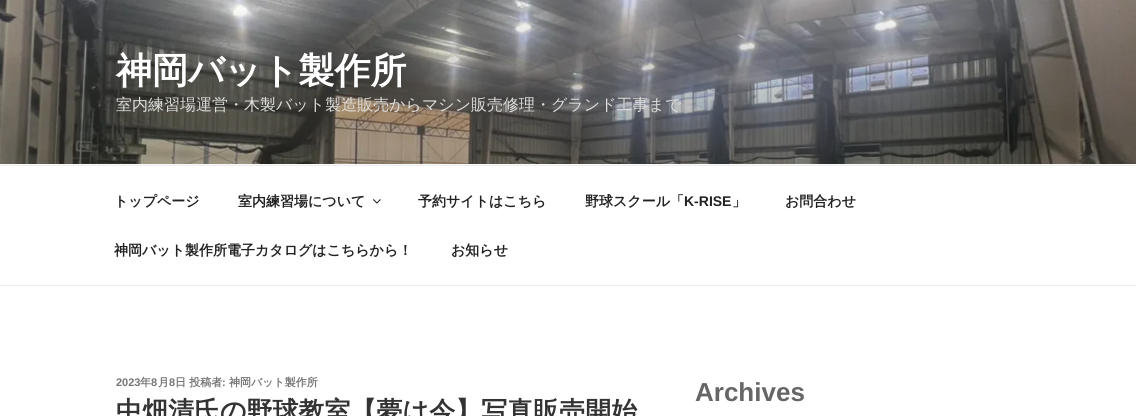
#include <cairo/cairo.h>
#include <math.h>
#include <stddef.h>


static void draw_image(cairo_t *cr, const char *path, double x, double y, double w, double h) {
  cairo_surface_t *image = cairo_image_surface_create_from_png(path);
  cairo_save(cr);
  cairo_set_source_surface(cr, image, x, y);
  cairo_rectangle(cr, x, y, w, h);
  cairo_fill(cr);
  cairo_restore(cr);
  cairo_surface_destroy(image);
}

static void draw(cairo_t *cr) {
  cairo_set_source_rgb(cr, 1, 1, 1);
  cairo_paint(cr);
  cairo_set_source_rgb(cr, 250 / 255.0, 250 / 255.0, 250 / 255.0);
  cairo_rectangle(cr, 0, 164, 1136, 1);
  cairo_fill(cr);
  draw_image(cr, "images/1.png", 0, 0, 1136, 164);
  cairo_set_source_rgb(cr, 238 / 255.0, 238 / 255.0, 238 / 255.0);
  cairo_rectangle(cr, 0, 165, 1136, 1);
  cairo_fill(cr);
  cairo_rectangle(cr, 0, 285, 1136, 1);
  cairo_fill(cr);
  draw_image(cr, "images/2.png", 373, 199, 8, 5);
  cairo_select_font_face(cr, "WenQuanYi Zen Hei", CAIRO_FONT_SLANT_NORMAL, CAIRO_FONT_WEIGHT_BOLD);
  cairo_set_font_size(cr, 36);
  cairo_set_source_rgb(cr, 1, 1, 1);
  cairo_move_to(cr, 116, 83);
  cairo_show_text(cr, "神岡バット製作所");
  cairo_select_font_face(cr, "WenQuanYi Zen Hei Medium", CAIRO_FONT_SLANT_NORMAL, CAIRO_FONT_WEIGHT_NORMAL);
  cairo_set_font_size(cr, 16);
  cairo_set_source_rgb(cr, 222 / 255.0, 221 / 255.0, 220 / 255.0);
  cairo_move_to(cr, 116, 110);
  cairo_show_text(cr, "室内練習場運営・木製バット製造販売からマシン販売修理・グランド工事まで");
  cairo_select_font_face(cr, "WenQuanYi Zen Hei", CAIRO_FONT_SLANT_NORMAL, CAIRO_FONT_WEIGHT_BOLD);
  cairo_set_font_size(cr, 14);
  cairo_set_source_rgb(cr, 34 / 255.0, 34 / 255.0, 34 / 255.0);
  cairo_move_to(cr, 114, 206);
  cairo_show_text(cr, "トップページ");
  cairo_move_to(cr, 238, 206);
  cairo_show_text(cr, "室内練習場について");
  cairo_move_to(cr, 418, 206);
  cairo_show_text(cr, "予約サイトはこちら");
  cairo_move_to(cr, 585, 206);
  cairo_show_text(cr, "野球スクール「");
  cairo_select_font_face(cr, "Liberation Sans", CAIRO_FONT_SLANT_NORMAL, CAIRO_FONT_WEIGHT_BOLD);
  cairo_move_to(cr, 684, 206);
  cairo_show_text(cr, "K-RISE");
  cairo_select_font_face(cr, "WenQuanYi Zen Hei", CAIRO_FONT_SLANT_NORMAL, CAIRO_FONT_WEIGHT_BOLD);
  cairo_move_to(cr, 732, 206);
  cairo_show_text(cr, "」");
  cairo_move_to(cr, 785, 206);
  cairo_show_text(cr, "お問合わせ");
  cairo_move_to(cr, 114, 255);
  cairo_show_text(cr, "神岡バット製作所電子カタログはこちらから！");
  cairo_move_to(cr, 451, 255);
  cairo_show_text(cr, "お知らせ");
  cairo_select_font_face(cr, "Liberation Sans", CAIRO_FONT_SLANT_NORMAL, CAIRO_FONT_WEIGHT_BOLD);
  cairo_set_font_size(cr, 11);
  cairo_set_source_rgb(cr, 118 / 255.0, 118 / 255.0, 118 / 255.0);
  cairo_move_to(cr, 116, 386);
  cairo_show_text(cr, "2023");
  cairo_select_font_face(cr, "WenQuanYi Zen Hei", CAIRO_FONT_SLANT_NORMAL, CAIRO_FONT_WEIGHT_BOLD);
  cairo_move_to(cr, 140, 386);
  cairo_show_text(cr, "年");
  cairo_select_font_face(cr, "Liberation Sans", CAIRO_FONT_SLANT_NORMAL, CAIRO_FONT_WEIGHT_BOLD);
  cairo_move_to(cr, 151, 386);
  cairo_show_text(cr, "8");
  cairo_select_font_face(cr, "WenQuanYi Zen Hei", CAIRO_FONT_SLANT_NORMAL, CAIRO_FONT_WEIGHT_BOLD);
  cairo_move_to(cr, 158, 386);
  cairo_show_text(cr, "月");
  cairo_select_font_face(cr, "Liberation Sans", CAIRO_FONT_SLANT_NORMAL, CAIRO_FONT_WEIGHT_BOLD);
  cairo_move_to(cr, 169, 386);
  cairo_show_text(cr, "8");
  cairo_select_font_face(cr, "WenQuanYi Zen Hei", CAIRO_FONT_SLANT_NORMAL, CAIRO_FONT_WEIGHT_BOLD);
  cairo_move_to(cr, 175, 386);
  cairo_show_text(cr, "日 投稿者");
  cairo_select_font_face(cr, "Liberation Sans", CAIRO_FONT_SLANT_NORMAL, CAIRO_FONT_WEIGHT_BOLD);
  cairo_move_to(cr, 222, 386);
  cairo_show_text(cr, ":");
  cairo_select_font_face(cr, "WenQuanYi Zen Hei", CAIRO_FONT_SLANT_NORMAL, CAIRO_FONT_WEIGHT_BOLD);
  cairo_move_to(cr, 229, 386);
  cairo_show_text(cr, "神岡バット製作所");
  cairo_set_font_size(cr, 26);
  cairo_set_source_rgb(cr, 51 / 255.0, 51 / 255.0, 51 / 255.0);
  cairo_move_to(cr, 116, 420);
  cairo_show_text(cr, "中畑清氏の野球教室【夢は今】写真販売開始");
  cairo_select_font_face(cr, "Liberation Sans", CAIRO_FONT_SLANT_NORMAL, CAIRO_FONT_WEIGHT_BOLD);
  cairo_set_source_rgb(cr, 102 / 255.0, 102 / 255.0, 102 / 255.0);
  cairo_move_to(cr, 695, 401);
  cairo_show_text(cr, "Archives");
}

int main(void) {
  cairo_surface_t *surface = cairo_image_surface_create(CAIRO_FORMAT_RGB24, 1136, 416);
  cairo_t *cr = cairo_create(surface);
  cairo_font_options_t *options = cairo_font_options_create();
  cairo_font_options_set_hint_metrics(options, CAIRO_HINT_METRICS_OFF);
  cairo_font_options_set_hint_style(options, CAIRO_HINT_STYLE_NONE);
  cairo_set_font_options(cr, options);
  cairo_set_miter_limit(cr, 4);
  draw(cr);
  cairo_surface_write_to_png(surface, "out.png");
  cairo_font_options_destroy(options);
  cairo_destroy(cr);
  cairo_surface_destroy(surface);
  return 0;
}
